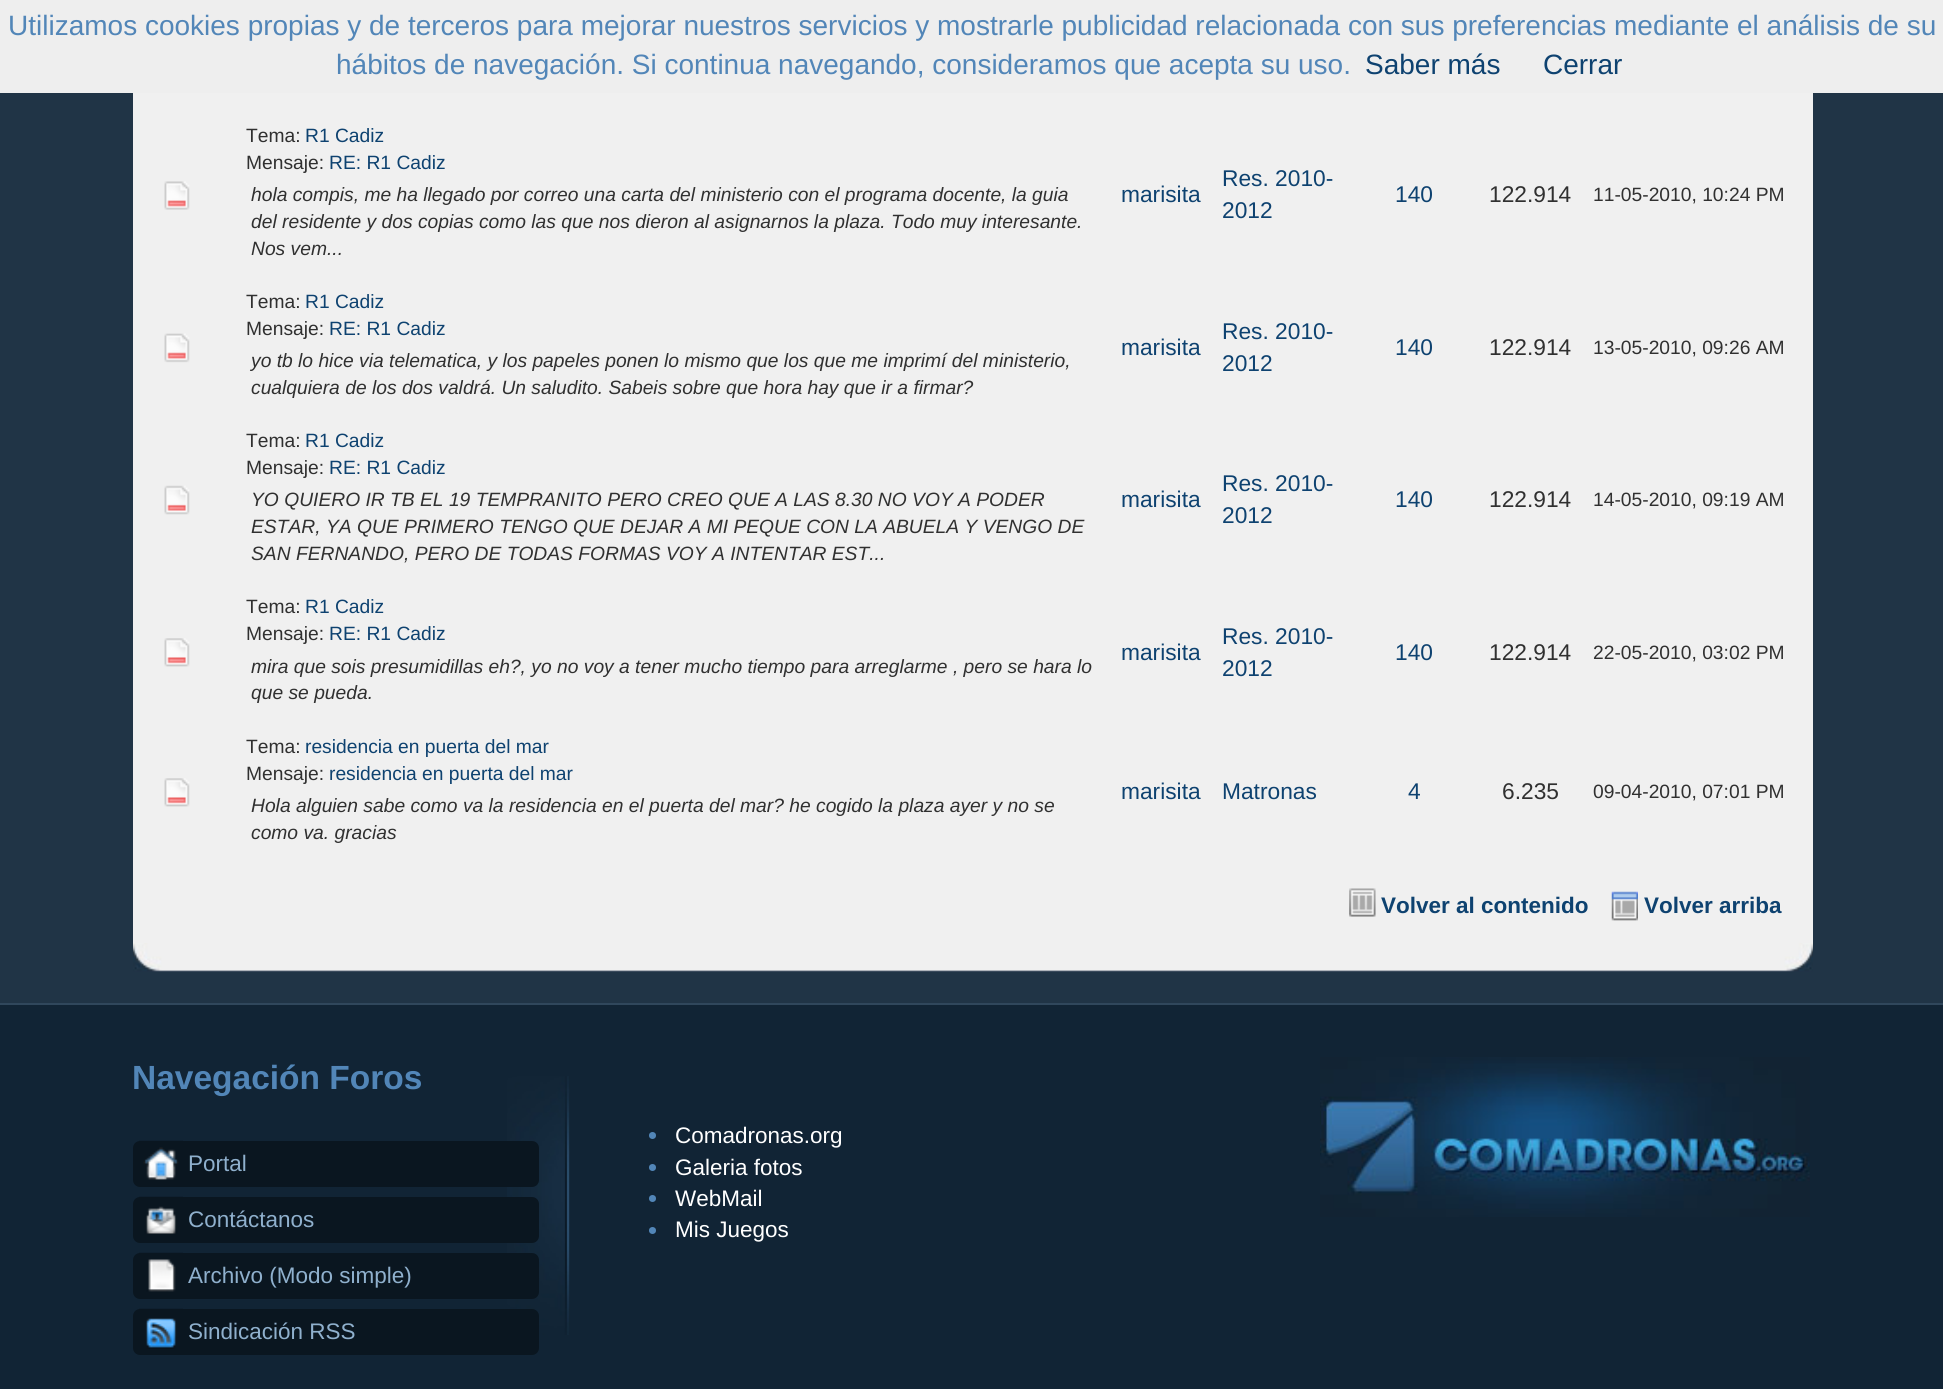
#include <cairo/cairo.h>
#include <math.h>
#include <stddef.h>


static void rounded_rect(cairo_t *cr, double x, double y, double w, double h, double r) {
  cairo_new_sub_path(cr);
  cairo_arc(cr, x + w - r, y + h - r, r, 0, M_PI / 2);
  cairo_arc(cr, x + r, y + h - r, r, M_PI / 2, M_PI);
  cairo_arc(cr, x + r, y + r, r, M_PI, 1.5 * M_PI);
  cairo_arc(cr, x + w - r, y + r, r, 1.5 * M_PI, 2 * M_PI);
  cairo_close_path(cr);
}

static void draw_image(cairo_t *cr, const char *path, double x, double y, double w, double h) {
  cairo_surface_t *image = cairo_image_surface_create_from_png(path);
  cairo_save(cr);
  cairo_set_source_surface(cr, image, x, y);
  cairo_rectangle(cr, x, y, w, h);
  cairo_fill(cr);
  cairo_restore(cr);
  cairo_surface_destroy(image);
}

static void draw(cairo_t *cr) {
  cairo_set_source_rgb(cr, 17 / 255.0, 36 / 255.0, 53 / 255.0);
  cairo_paint(cr);
  cairo_set_source_rgb(cr, 238 / 255.0, 238 / 255.0, 238 / 255.0);
  cairo_rectangle(cr, 0, 0, 1943, 93);
  cairo_fill(cr);
  cairo_set_source_rgb(cr, 32 / 255.0, 52 / 255.0, 70 / 255.0);
  cairo_rectangle(cr, 0, 93, 1943, 910);
  cairo_fill(cr);
  cairo_set_source_rgb(cr, 240 / 255.0, 240 / 255.0, 240 / 255.0);
  cairo_rectangle(cr, 133, 93, 1680, 850);
  cairo_fill(cr);
  draw_image(cr, "images/1.png", 164, 181, 26, 29);
  draw_image(cr, "images/2.png", 164, 333, 26, 30);
  draw_image(cr, "images/3.png", 164, 485, 26, 30);
  draw_image(cr, "images/4.png", 164, 638, 26, 29);
  draw_image(cr, "images/4.png", 164, 778, 26, 29);
  draw_image(cr, "images/5.png", 1349, 888, 27, 29);
  draw_image(cr, "images/6.png", 1611, 891, 27, 30);
  draw_image(cr, "images/7.png", 133, 943, 1680, 29);
  cairo_set_source_rgb(cr, 48 / 255.0, 71 / 255.0, 92 / 255.0);
  cairo_rectangle(cr, 0, 1003, 1943, 2);
  cairo_fill(cr);
  draw_image(cr, "images/8.png", 507, 1076, 63, 259);
  cairo_set_source_rgb(cr, 10 / 255.0, 22 / 255.0, 32 / 255.0);
  rounded_rect(cr, 133, 1141, 406, 46, 7);
  cairo_fill(cr);
  draw_image(cr, "images/9.png", 139, 1140, 44, 40);
  rounded_rect(cr, 133, 1197, 406, 46, 7);
  cairo_fill(cr);
  draw_image(cr, "images/10.png", 139, 1196, 44, 38);
  rounded_rect(cr, 133, 1253, 406, 46, 7);
  cairo_fill(cr);
  draw_image(cr, "images/11.png", 139, 1252, 44, 40);
  rounded_rect(cr, 133, 1309, 406, 46, 7);
  cairo_fill(cr);
  draw_image(cr, "images/12.png", 139, 1308, 44, 41);
  draw_image(cr, "images/13.png", 1320, 1057, 490, 160);
  cairo_set_source_rgb(cr, 82 / 255.0, 134 / 255.0, 184 / 255.0);
  cairo_arc(cr, 652.5, 1135.5, 3.5, 0, 2 * M_PI);
  cairo_fill(cr);
  cairo_arc(cr, 652.5, 1167.5, 3.5, 0, 2 * M_PI);
  cairo_fill(cr);
  cairo_arc(cr, 652.5, 1198.5, 3.5, 0, 2 * M_PI);
  cairo_fill(cr);
  cairo_arc(cr, 652.5, 1230.5, 3.5, 0, 2 * M_PI);
  cairo_fill(cr);
  cairo_select_font_face(cr, "Liberation Sans", CAIRO_FONT_SLANT_NORMAL, CAIRO_FONT_WEIGHT_NORMAL);
  cairo_set_font_size(cr, 28);
  cairo_move_to(cr, 8, 35);
  cairo_show_text(cr, "Utilizamos cookies propias y de terceros para mejorar nuestros servicios y mostrarle publicidad relacionada con sus preferencias mediante el análisis de su");
  cairo_move_to(cr, 336, 74);
  cairo_show_text(cr, "hábitos de navegación. Si continua navegando, consideramos que acepta su uso.");
  cairo_set_source_rgb(cr, 14 / 255.0, 66 / 255.0, 112 / 255.0);
  cairo_move_to(cr, 1365, 74);
  cairo_show_text(cr, "Saber más");
  cairo_move_to(cr, 1543, 74);
  cairo_show_text(cr, "Cerrar");
  cairo_set_font_size(cr, 19.25);
  cairo_set_source_rgb(cr, 48 / 255.0, 48 / 255.0, 48 / 255.0);
  cairo_move_to(cr, 246, 142);
  cairo_show_text(cr, "Tema:");
  cairo_set_source_rgb(cr, 14 / 255.0, 66 / 255.0, 112 / 255.0);
  cairo_move_to(cr, 305, 142);
  cairo_show_text(cr, "R1 Cadiz");
  cairo_set_source_rgb(cr, 48 / 255.0, 48 / 255.0, 48 / 255.0);
  cairo_move_to(cr, 246, 169);
  cairo_show_text(cr, "Mensaje:");
  cairo_set_source_rgb(cr, 14 / 255.0, 66 / 255.0, 112 / 255.0);
  cairo_move_to(cr, 329, 169);
  cairo_show_text(cr, "RE: R1 Cadiz");
  cairo_select_font_face(cr, "Liberation Sans", CAIRO_FONT_SLANT_ITALIC, CAIRO_FONT_WEIGHT_NORMAL);
  cairo_set_source_rgb(cr, 48 / 255.0, 48 / 255.0, 48 / 255.0);
  cairo_move_to(cr, 251, 201);
  cairo_show_text(cr, "hola compis, me ha llegado por correo una carta del ministerio con el programa docente, la guia");
  cairo_move_to(cr, 251, 228);
  cairo_show_text(cr, "del residente y dos copias como las que nos dieron al asignarnos la plaza. Todo muy interesante.");
  cairo_move_to(cr, 251, 255);
  cairo_show_text(cr, "Nos vem...");
  cairo_select_font_face(cr, "Liberation Sans", CAIRO_FONT_SLANT_NORMAL, CAIRO_FONT_WEIGHT_NORMAL);
  cairo_set_font_size(cr, 22.75);
  cairo_set_source_rgb(cr, 14 / 255.0, 66 / 255.0, 112 / 255.0);
  cairo_move_to(cr, 1121, 202);
  cairo_show_text(cr, "marisita");
  cairo_move_to(cr, 1222, 186);
  cairo_show_text(cr, "Res. 2010-");
  cairo_move_to(cr, 1222, 218);
  cairo_show_text(cr, "2012");
  cairo_move_to(cr, 1395, 202);
  cairo_show_text(cr, "140");
  cairo_set_source_rgb(cr, 48 / 255.0, 48 / 255.0, 48 / 255.0);
  cairo_move_to(cr, 1489, 202);
  cairo_show_text(cr, "122.914");
  cairo_set_font_size(cr, 19.25);
  cairo_move_to(cr, 1593, 201);
  cairo_show_text(cr, "11-05-2010, 10:24 PM");
  cairo_move_to(cr, 246, 308);
  cairo_show_text(cr, "Tema:");
  cairo_set_source_rgb(cr, 14 / 255.0, 66 / 255.0, 112 / 255.0);
  cairo_move_to(cr, 305, 308);
  cairo_show_text(cr, "R1 Cadiz");
  cairo_set_source_rgb(cr, 48 / 255.0, 48 / 255.0, 48 / 255.0);
  cairo_move_to(cr, 246, 335);
  cairo_show_text(cr, "Mensaje:");
  cairo_set_source_rgb(cr, 14 / 255.0, 66 / 255.0, 112 / 255.0);
  cairo_move_to(cr, 329, 335);
  cairo_show_text(cr, "RE: R1 Cadiz");
  cairo_select_font_face(cr, "Liberation Sans", CAIRO_FONT_SLANT_ITALIC, CAIRO_FONT_WEIGHT_NORMAL);
  cairo_set_source_rgb(cr, 48 / 255.0, 48 / 255.0, 48 / 255.0);
  cairo_move_to(cr, 251, 367);
  cairo_show_text(cr, "yo tb lo hice via telematica, y los papeles ponen lo mismo que los que me imprimí del ministerio,");
  cairo_move_to(cr, 251, 394);
  cairo_show_text(cr, "cualquiera de los dos valdrá. Un saludito. Sabeis sobre que hora hay que ir a firmar?");
  cairo_select_font_face(cr, "Liberation Sans", CAIRO_FONT_SLANT_NORMAL, CAIRO_FONT_WEIGHT_NORMAL);
  cairo_set_font_size(cr, 22.75);
  cairo_set_source_rgb(cr, 14 / 255.0, 66 / 255.0, 112 / 255.0);
  cairo_move_to(cr, 1121, 355);
  cairo_show_text(cr, "marisita");
  cairo_move_to(cr, 1222, 339);
  cairo_show_text(cr, "Res. 2010-");
  cairo_move_to(cr, 1222, 371);
  cairo_show_text(cr, "2012");
  cairo_move_to(cr, 1395, 355);
  cairo_show_text(cr, "140");
  cairo_set_source_rgb(cr, 48 / 255.0, 48 / 255.0, 48 / 255.0);
  cairo_move_to(cr, 1489, 355);
  cairo_show_text(cr, "122.914");
  cairo_set_font_size(cr, 19.25);
  cairo_move_to(cr, 1593, 354);
  cairo_show_text(cr, "13-05-2010, 09:26 AM");
  cairo_move_to(cr, 246, 447);
  cairo_show_text(cr, "Tema:");
  cairo_set_source_rgb(cr, 14 / 255.0, 66 / 255.0, 112 / 255.0);
  cairo_move_to(cr, 305, 447);
  cairo_show_text(cr, "R1 Cadiz");
  cairo_set_source_rgb(cr, 48 / 255.0, 48 / 255.0, 48 / 255.0);
  cairo_move_to(cr, 246, 474);
  cairo_show_text(cr, "Mensaje:");
  cairo_set_source_rgb(cr, 14 / 255.0, 66 / 255.0, 112 / 255.0);
  cairo_move_to(cr, 329, 474);
  cairo_show_text(cr, "RE: R1 Cadiz");
  cairo_select_font_face(cr, "Liberation Sans", CAIRO_FONT_SLANT_ITALIC, CAIRO_FONT_WEIGHT_NORMAL);
  cairo_set_source_rgb(cr, 48 / 255.0, 48 / 255.0, 48 / 255.0);
  cairo_move_to(cr, 251, 506);
  cairo_show_text(cr, "YO QUIERO IR TB EL 19 TEMPRANITO PERO CREO QUE A LAS 8.30 NO VOY A PODER");
  cairo_move_to(cr, 251, 533);
  cairo_show_text(cr, "ESTAR, YA QUE PRIMERO TENGO QUE DEJAR A MI PEQUE CON LA ABUELA Y VENGO DE");
  cairo_move_to(cr, 251, 560);
  cairo_show_text(cr, "SAN FERNANDO, PERO DE TODAS FORMAS VOY A INTENTAR EST...");
  cairo_select_font_face(cr, "Liberation Sans", CAIRO_FONT_SLANT_NORMAL, CAIRO_FONT_WEIGHT_NORMAL);
  cairo_set_font_size(cr, 22.75);
  cairo_set_source_rgb(cr, 14 / 255.0, 66 / 255.0, 112 / 255.0);
  cairo_move_to(cr, 1121, 507);
  cairo_show_text(cr, "marisita");
  cairo_move_to(cr, 1222, 491);
  cairo_show_text(cr, "Res. 2010-");
  cairo_move_to(cr, 1222, 523);
  cairo_show_text(cr, "2012");
  cairo_move_to(cr, 1395, 507);
  cairo_show_text(cr, "140");
  cairo_set_source_rgb(cr, 48 / 255.0, 48 / 255.0, 48 / 255.0);
  cairo_move_to(cr, 1489, 507);
  cairo_show_text(cr, "122.914");
  cairo_set_font_size(cr, 19.25);
  cairo_move_to(cr, 1593, 506);
  cairo_show_text(cr, "14-05-2010, 09:19 AM");
  cairo_move_to(cr, 246, 613);
  cairo_show_text(cr, "Tema:");
  cairo_set_source_rgb(cr, 14 / 255.0, 66 / 255.0, 112 / 255.0);
  cairo_move_to(cr, 305, 613);
  cairo_show_text(cr, "R1 Cadiz");
  cairo_set_source_rgb(cr, 48 / 255.0, 48 / 255.0, 48 / 255.0);
  cairo_move_to(cr, 246, 640);
  cairo_show_text(cr, "Mensaje:");
  cairo_set_source_rgb(cr, 14 / 255.0, 66 / 255.0, 112 / 255.0);
  cairo_move_to(cr, 329, 640);
  cairo_show_text(cr, "RE: R1 Cadiz");
  cairo_select_font_face(cr, "Liberation Sans", CAIRO_FONT_SLANT_ITALIC, CAIRO_FONT_WEIGHT_NORMAL);
  cairo_set_source_rgb(cr, 48 / 255.0, 48 / 255.0, 48 / 255.0);
  cairo_move_to(cr, 251, 673);
  cairo_show_text(cr, "mira que sois presumidillas eh?, yo no voy a tener mucho tiempo para arreglarme , pero se hara lo");
  cairo_move_to(cr, 251, 699);
  cairo_show_text(cr, "que se pueda.");
  cairo_select_font_face(cr, "Liberation Sans", CAIRO_FONT_SLANT_NORMAL, CAIRO_FONT_WEIGHT_NORMAL);
  cairo_set_font_size(cr, 22.75);
  cairo_set_source_rgb(cr, 14 / 255.0, 66 / 255.0, 112 / 255.0);
  cairo_move_to(cr, 1121, 660);
  cairo_show_text(cr, "marisita");
  cairo_move_to(cr, 1222, 644);
  cairo_show_text(cr, "Res. 2010-");
  cairo_move_to(cr, 1222, 676);
  cairo_show_text(cr, "2012");
  cairo_move_to(cr, 1395, 660);
  cairo_show_text(cr, "140");
  cairo_set_source_rgb(cr, 48 / 255.0, 48 / 255.0, 48 / 255.0);
  cairo_move_to(cr, 1489, 660);
  cairo_show_text(cr, "122.914");
  cairo_set_font_size(cr, 19.25);
  cairo_move_to(cr, 1593, 659);
  cairo_show_text(cr, "22-05-2010, 03:02 PM");
  cairo_move_to(cr, 246, 753);
  cairo_show_text(cr, "Tema:");
  cairo_set_source_rgb(cr, 14 / 255.0, 66 / 255.0, 112 / 255.0);
  cairo_move_to(cr, 305, 753);
  cairo_show_text(cr, "residencia en puerta del mar");
  cairo_set_source_rgb(cr, 48 / 255.0, 48 / 255.0, 48 / 255.0);
  cairo_move_to(cr, 246, 780);
  cairo_show_text(cr, "Mensaje:");
  cairo_set_source_rgb(cr, 14 / 255.0, 66 / 255.0, 112 / 255.0);
  cairo_move_to(cr, 329, 780);
  cairo_show_text(cr, "residencia en puerta del mar");
  cairo_select_font_face(cr, "Liberation Sans", CAIRO_FONT_SLANT_ITALIC, CAIRO_FONT_WEIGHT_NORMAL);
  cairo_set_source_rgb(cr, 48 / 255.0, 48 / 255.0, 48 / 255.0);
  cairo_move_to(cr, 251, 812);
  cairo_show_text(cr, "Hola alguien sabe como va la residencia en el puerta del mar? he cogido la plaza ayer y no se");
  cairo_move_to(cr, 251, 839);
  cairo_show_text(cr, "como va. gracias");
  cairo_select_font_face(cr, "Liberation Sans", CAIRO_FONT_SLANT_NORMAL, CAIRO_FONT_WEIGHT_NORMAL);
  cairo_set_font_size(cr, 22.75);
  cairo_set_source_rgb(cr, 14 / 255.0, 66 / 255.0, 112 / 255.0);
  cairo_move_to(cr, 1121, 799);
  cairo_show_text(cr, "marisita");
  cairo_move_to(cr, 1222, 799);
  cairo_show_text(cr, "Matronas");
  cairo_move_to(cr, 1408, 799);
  cairo_show_text(cr, "4");
  cairo_set_source_rgb(cr, 48 / 255.0, 48 / 255.0, 48 / 255.0);
  cairo_move_to(cr, 1502, 799);
  cairo_show_text(cr, "6.235");
  cairo_set_font_size(cr, 19.25);
  cairo_move_to(cr, 1593, 798);
  cairo_show_text(cr, "09-04-2010, 07:01 PM");
  cairo_select_font_face(cr, "Liberation Sans", CAIRO_FONT_SLANT_NORMAL, CAIRO_FONT_WEIGHT_BOLD);
  cairo_set_font_size(cr, 22.5);
  cairo_set_source_rgb(cr, 14 / 255.0, 66 / 255.0, 112 / 255.0);
  cairo_move_to(cr, 1381, 913);
  cairo_show_text(cr, "Volver al contenido");
  cairo_move_to(cr, 1644, 913);
  cairo_show_text(cr, "Volver arriba");
  cairo_set_font_size(cr, 33.5);
  cairo_set_source_rgb(cr, 82 / 255.0, 134 / 255.0, 184 / 255.0);
  cairo_move_to(cr, 132, 1089);
  cairo_show_text(cr, "Navegación Foros");
  cairo_select_font_face(cr, "Liberation Sans", CAIRO_FONT_SLANT_NORMAL, CAIRO_FONT_WEIGHT_NORMAL);
  cairo_set_font_size(cr, 22.5);
  cairo_set_source_rgb(cr, 143 / 255.0, 176 / 255.0, 205 / 255.0);
  cairo_move_to(cr, 188, 1171);
  cairo_show_text(cr, "Portal");
  cairo_move_to(cr, 188, 1227);
  cairo_show_text(cr, "Contáctanos");
  cairo_move_to(cr, 188, 1283);
  cairo_show_text(cr, "Archivo (Modo simple)");
  cairo_move_to(cr, 188, 1339);
  cairo_show_text(cr, "Sindicación RSS");
  cairo_set_source_rgb(cr, 1, 1, 1);
  cairo_move_to(cr, 675, 1143);
  cairo_show_text(cr, "Comadronas.org");
  cairo_move_to(cr, 675, 1175);
  cairo_show_text(cr, "Galeria fotos");
  cairo_move_to(cr, 675, 1206);
  cairo_show_text(cr, "WebMail");
  cairo_move_to(cr, 675, 1237);
  cairo_show_text(cr, "Mis Juegos");
}

int main(void) {
  cairo_surface_t *surface = cairo_image_surface_create(CAIRO_FORMAT_RGB24, 1943, 1389);
  cairo_t *cr = cairo_create(surface);
  cairo_font_options_t *options = cairo_font_options_create();
  cairo_font_options_set_hint_metrics(options, CAIRO_HINT_METRICS_OFF);
  cairo_font_options_set_hint_style(options, CAIRO_HINT_STYLE_NONE);
  cairo_set_font_options(cr, options);
  cairo_set_miter_limit(cr, 4);
  draw(cr);
  cairo_surface_write_to_png(surface, "out.png");
  cairo_font_options_destroy(options);
  cairo_destroy(cr);
  cairo_surface_destroy(surface);
  return 0;
}
